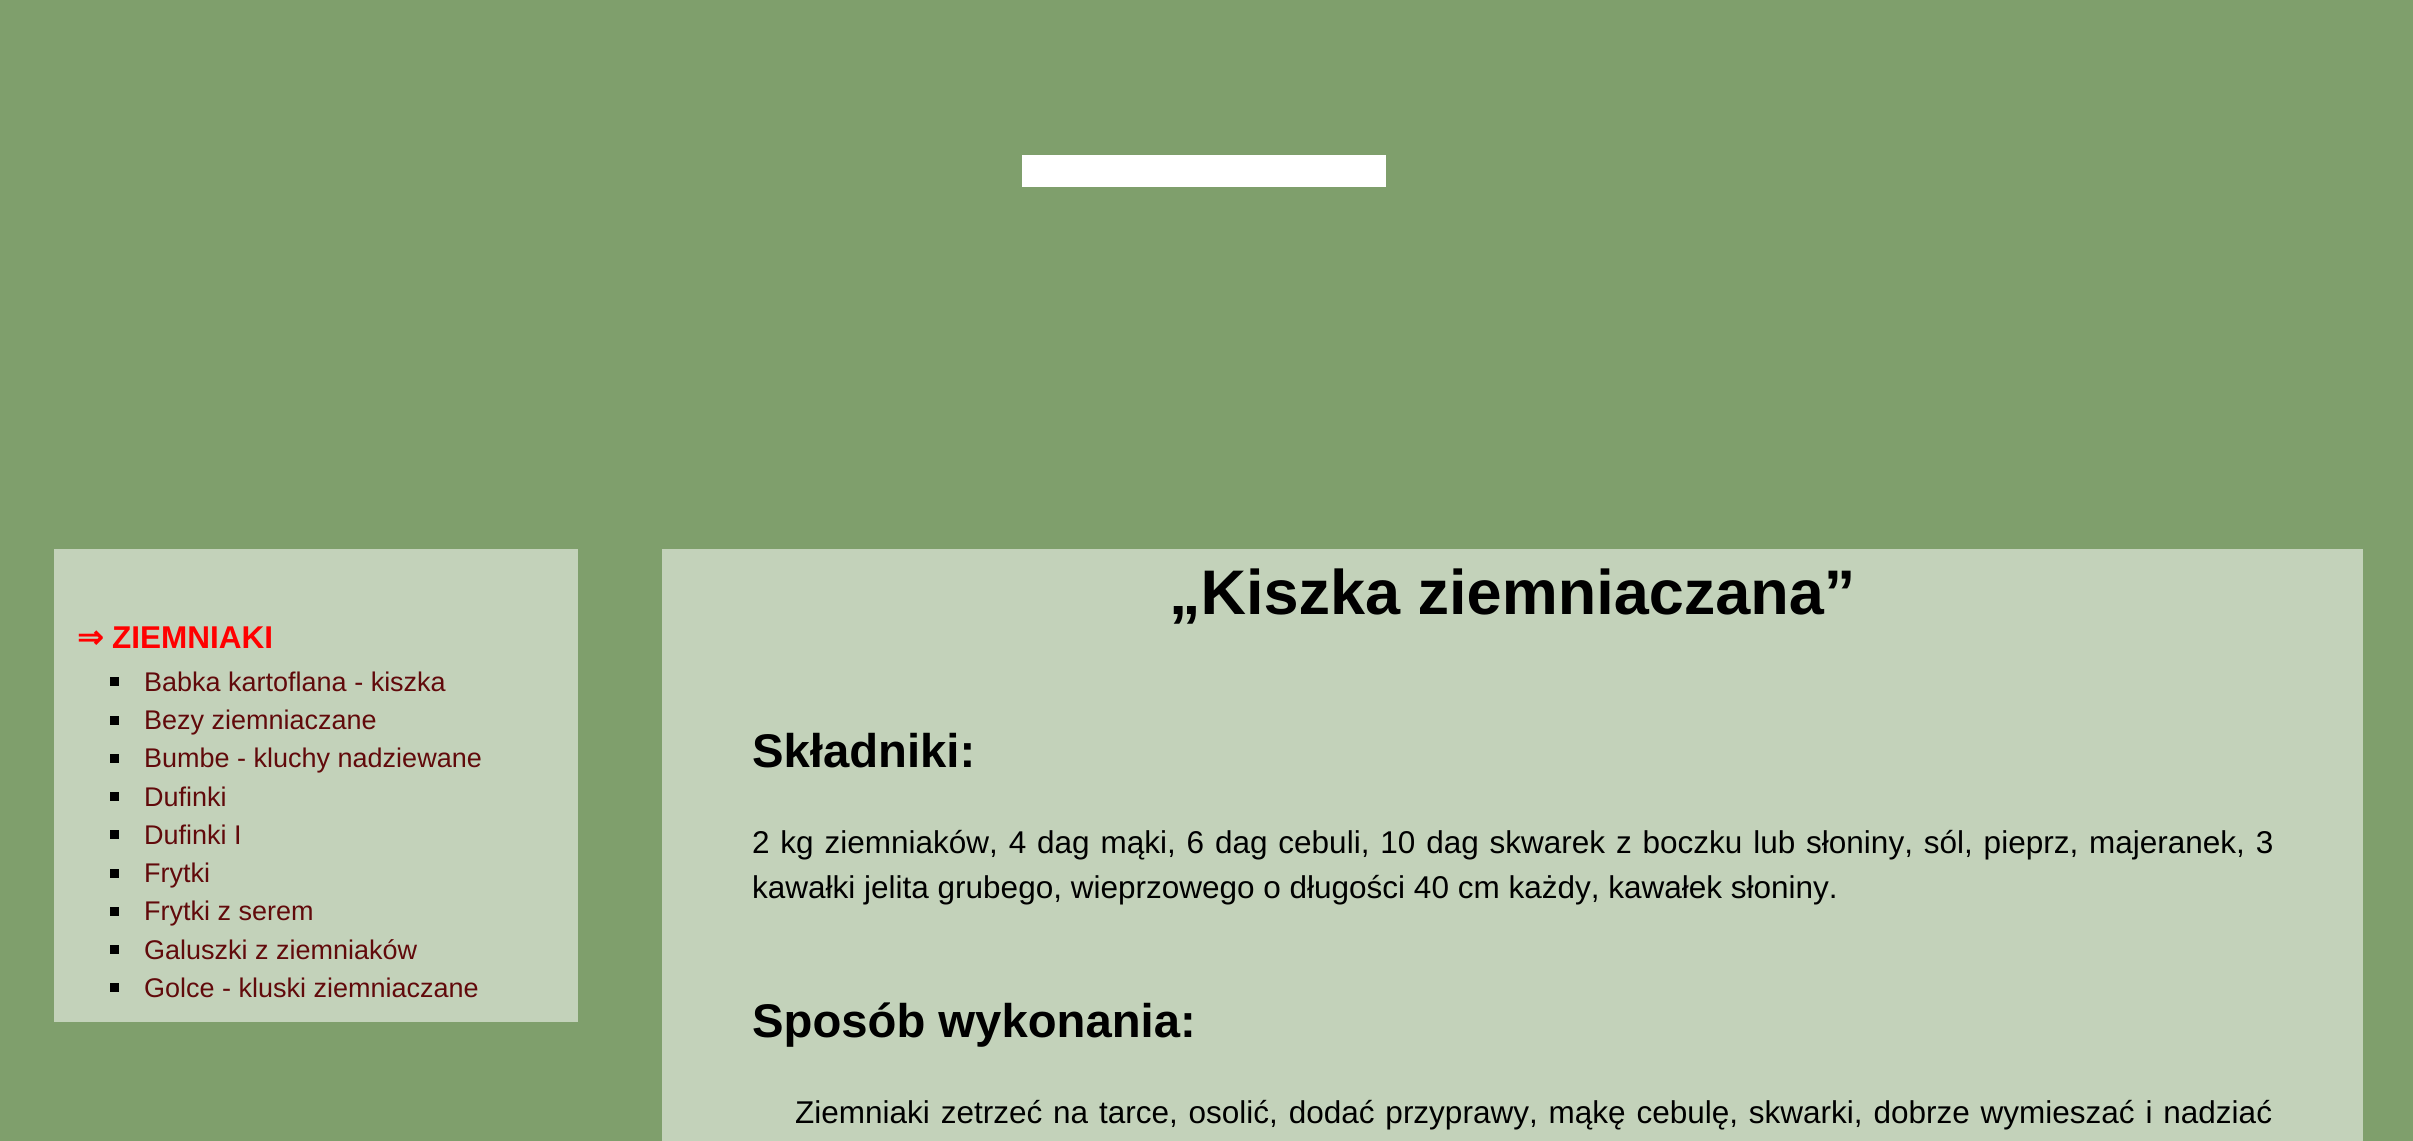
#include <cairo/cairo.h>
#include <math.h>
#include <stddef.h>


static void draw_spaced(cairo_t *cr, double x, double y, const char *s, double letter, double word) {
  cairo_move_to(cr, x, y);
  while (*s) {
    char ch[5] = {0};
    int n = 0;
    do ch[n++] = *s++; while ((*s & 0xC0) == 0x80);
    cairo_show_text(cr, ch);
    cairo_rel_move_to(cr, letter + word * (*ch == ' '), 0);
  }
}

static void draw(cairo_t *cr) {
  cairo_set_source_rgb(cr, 127 / 255.0, 159 / 255.0, 108 / 255.0);
  cairo_paint(cr);
  cairo_set_source_rgb(cr, 1, 1, 1);
  cairo_rectangle(cr, 1022, 155, 364, 32);
  cairo_fill(cr);
  cairo_set_source_rgb(cr, 195 / 255.0, 210 / 255.0, 186 / 255.0);
  cairo_rectangle(cr, 54, 549, 524, 473);
  cairo_fill(cr);
  cairo_set_source_rgb(cr, 0, 0, 0);
  cairo_rectangle(cr, 110, 677, 9, 9);
  cairo_fill(cr);
  cairo_rectangle(cr, 110, 716, 9, 9);
  cairo_fill(cr);
  cairo_rectangle(cr, 110, 754, 9, 9);
  cairo_fill(cr);
  cairo_rectangle(cr, 110, 792, 9, 9);
  cairo_fill(cr);
  cairo_rectangle(cr, 110, 830, 9, 9);
  cairo_fill(cr);
  cairo_rectangle(cr, 110, 869, 9, 9);
  cairo_fill(cr);
  cairo_rectangle(cr, 110, 907, 9, 9);
  cairo_fill(cr);
  cairo_rectangle(cr, 110, 945, 9, 9);
  cairo_fill(cr);
  cairo_rectangle(cr, 110, 983, 9, 9);
  cairo_fill(cr);
  cairo_set_source_rgb(cr, 195 / 255.0, 210 / 255.0, 186 / 255.0);
  cairo_rectangle(cr, 662, 549, 1701, 592);
  cairo_fill(cr);
  cairo_select_font_face(cr, "DejaVu Sans", CAIRO_FONT_SLANT_NORMAL, CAIRO_FONT_WEIGHT_BOLD);
  cairo_set_font_size(cr, 31.5);
  cairo_set_source_rgb(cr, 1, 0, 0);
  cairo_move_to(cr, 77, 648);
  cairo_show_text(cr, "⇒");
  cairo_select_font_face(cr, "Liberation Sans", CAIRO_FONT_SLANT_NORMAL, CAIRO_FONT_WEIGHT_BOLD);
  cairo_move_to(cr, 112, 648);
  cairo_show_text(cr, "ZIEMNIAKI");
  cairo_select_font_face(cr, "Liberation Sans", CAIRO_FONT_SLANT_NORMAL, CAIRO_FONT_WEIGHT_NORMAL);
  cairo_set_font_size(cr, 27);
  cairo_set_source_rgb(cr, 97 / 255.0, 10 / 255.0, 11 / 255.0);
  cairo_move_to(cr, 144, 691);
  cairo_show_text(cr, "Babka kartoflana - kiszka");
  cairo_move_to(cr, 144, 729);
  cairo_show_text(cr, "Bezy ziemniaczane");
  cairo_move_to(cr, 144, 767);
  cairo_show_text(cr, "Bumbe - kluchy nadziewane");
  cairo_move_to(cr, 144, 806);
  cairo_show_text(cr, "Dufinki");
  cairo_move_to(cr, 144, 844);
  cairo_show_text(cr, "Dufinki I");
  cairo_move_to(cr, 144, 882);
  cairo_show_text(cr, "Frytki");
  cairo_move_to(cr, 144, 920);
  cairo_show_text(cr, "Frytki z serem");
  cairo_move_to(cr, 144, 959);
  cairo_show_text(cr, "Galuszki z ziemniaków");
  cairo_move_to(cr, 144, 997);
  cairo_show_text(cr, "Golce - kluski ziemniaczane");
  cairo_select_font_face(cr, "Liberation Sans", CAIRO_FONT_SLANT_NORMAL, CAIRO_FONT_WEIGHT_BOLD);
  cairo_set_font_size(cr, 63);
  cairo_set_source_rgb(cr, 0, 0, 0);
  cairo_move_to(cr, 1169, 614);
  cairo_show_text(cr, "„Kiszka ziemniaczana”");
  cairo_set_font_size(cr, 47.25);
  cairo_move_to(cr, 752, 767);
  cairo_show_text(cr, "Składniki:");
  cairo_select_font_face(cr, "Liberation Sans", CAIRO_FONT_SLANT_NORMAL, CAIRO_FONT_WEIGHT_NORMAL);
  cairo_set_font_size(cr, 31.5);
  draw_spaced(cr, 752, 853, "2 kg ziemniaków, 4 dag mąki, 6 dag cebuli, 10 dag skwarek z boczku lub słoniny, sól, pieprz, majeranek, 3", 0, 2.1);
  cairo_move_to(cr, 752, 898);
  cairo_show_text(cr, "kawałki jelita grubego, wieprzowego o długości 40 cm każdy, kawałek słoniny.");
  cairo_select_font_face(cr, "Liberation Sans", CAIRO_FONT_SLANT_NORMAL, CAIRO_FONT_WEIGHT_BOLD);
  cairo_set_font_size(cr, 47.25);
  cairo_move_to(cr, 752, 1037);
  cairo_show_text(cr, "Sposób wykonania:");
  cairo_select_font_face(cr, "Liberation Sans", CAIRO_FONT_SLANT_NORMAL, CAIRO_FONT_WEIGHT_NORMAL);
  cairo_set_font_size(cr, 31.5);
  draw_spaced(cr, 795, 1123, "Ziemniaki zetrzeć na tarce, osolić, dodać przyprawy, mąkę cebulę, skwarki, dobrze wymieszać i nadziać", 0, 2.1);
}

int main(void) {
  cairo_surface_t *surface = cairo_image_surface_create(CAIRO_FORMAT_RGB24, 2413, 1141);
  cairo_t *cr = cairo_create(surface);
  cairo_font_options_t *options = cairo_font_options_create();
  cairo_font_options_set_hint_metrics(options, CAIRO_HINT_METRICS_OFF);
  cairo_font_options_set_hint_style(options, CAIRO_HINT_STYLE_NONE);
  cairo_set_font_options(cr, options);
  cairo_set_miter_limit(cr, 4);
  draw(cr);
  cairo_surface_write_to_png(surface, "out.png");
  cairo_font_options_destroy(options);
  cairo_destroy(cr);
  cairo_surface_destroy(surface);
  return 0;
}
